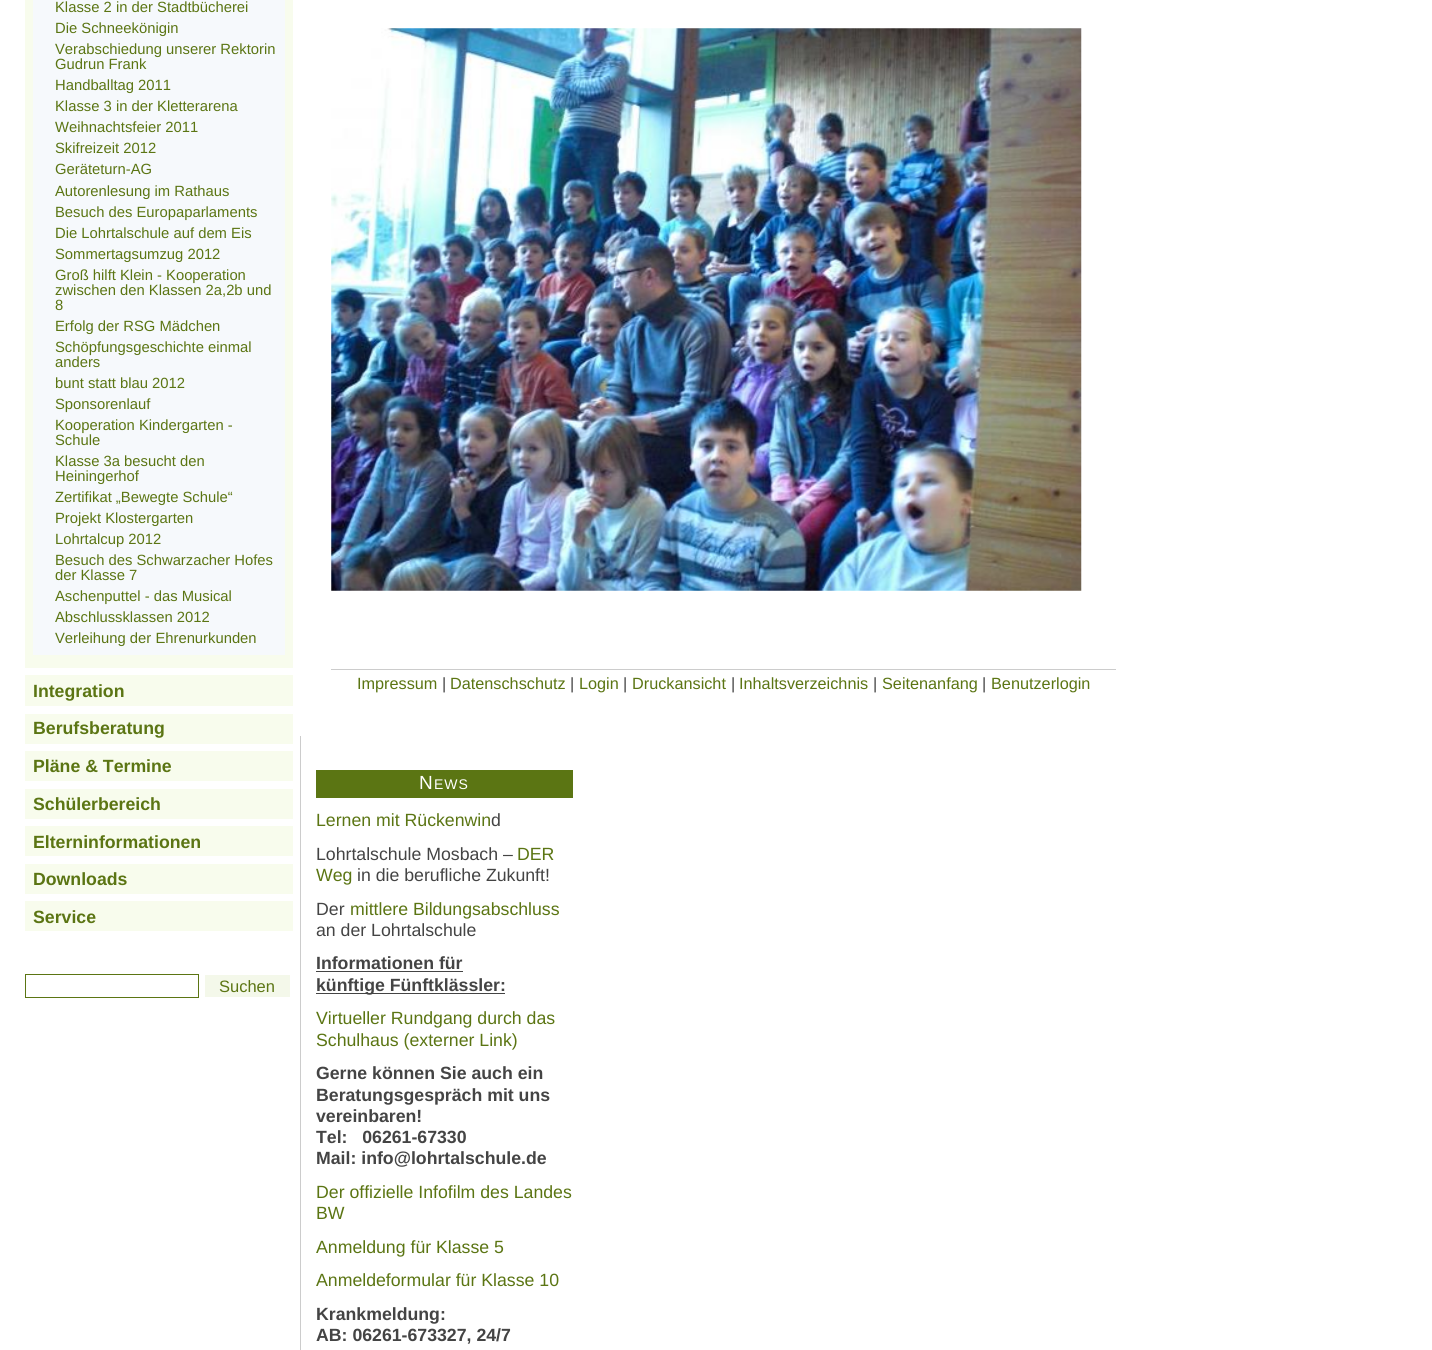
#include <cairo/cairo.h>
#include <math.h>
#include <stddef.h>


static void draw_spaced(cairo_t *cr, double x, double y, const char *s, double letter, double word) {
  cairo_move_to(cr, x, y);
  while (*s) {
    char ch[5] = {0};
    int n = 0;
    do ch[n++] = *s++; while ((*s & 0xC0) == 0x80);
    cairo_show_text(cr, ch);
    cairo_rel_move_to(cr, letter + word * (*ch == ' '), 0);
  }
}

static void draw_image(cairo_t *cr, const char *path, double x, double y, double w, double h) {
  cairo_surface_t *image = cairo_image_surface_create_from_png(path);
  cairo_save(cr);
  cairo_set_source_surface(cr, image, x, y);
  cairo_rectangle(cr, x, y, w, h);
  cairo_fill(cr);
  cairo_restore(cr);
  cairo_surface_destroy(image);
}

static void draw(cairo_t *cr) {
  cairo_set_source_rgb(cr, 1, 1, 1);
  cairo_paint(cr);
  cairo_set_source_rgb(cr, 248 / 255.0, 252 / 255.0, 237 / 255.0);
  cairo_rectangle(cr, 25, 0, 268, 668);
  cairo_fill(cr);
  cairo_set_source_rgb(cr, 246 / 255.0, 249 / 255.0, 252 / 255.0);
  cairo_rectangle(cr, 33, 0, 252, 655);
  cairo_fill(cr);
  cairo_set_source_rgb(cr, 248 / 255.0, 252 / 255.0, 237 / 255.0);
  cairo_rectangle(cr, 25, 675, 268, 31);
  cairo_fill(cr);
  cairo_rectangle(cr, 25, 714, 268, 30);
  cairo_fill(cr);
  cairo_rectangle(cr, 25, 751, 268, 30);
  cairo_fill(cr);
  cairo_rectangle(cr, 25, 789, 268, 30);
  cairo_fill(cr);
  cairo_rectangle(cr, 25, 826, 268, 30);
  cairo_fill(cr);
  cairo_rectangle(cr, 25, 864, 268, 30);
  cairo_fill(cr);
  cairo_rectangle(cr, 25, 901, 268, 30);
  cairo_fill(cr);
  cairo_rectangle(cr, 25.5, 974.5, 173, 23);
  cairo_set_source_rgb(cr, 91 / 255.0, 117 / 255.0, 19 / 255.0);
  cairo_set_line_width(cr, 1);
  cairo_stroke(cr);
  cairo_set_source_rgb(cr, 244 / 255.0, 248 / 255.0, 234 / 255.0);
  cairo_rectangle(cr, 205, 975, 85, 22);
  cairo_fill(cr);
  draw_image(cr, "images/1.png", 331, 28, 751, 563);
  cairo_set_source_rgb(cr, 204 / 255.0, 204 / 255.0, 204 / 255.0);
  cairo_rectangle(cr, 331, 669, 785, 1);
  cairo_fill(cr);
  cairo_rectangle(cr, 300, 736, 1, 614);
  cairo_fill(cr);
  cairo_set_source_rgb(cr, 91 / 255.0, 117 / 255.0, 19 / 255.0);
  cairo_rectangle(cr, 316, 770, 257, 28);
  cairo_fill(cr);
  cairo_set_source_rgb(cr, 68 / 255.0, 68 / 255.0, 68 / 255.0);
  cairo_rectangle(cr, 316, 971, 147, 1);
  cairo_fill(cr);
  cairo_rectangle(cr, 316, 993, 189, 1);
  cairo_fill(cr);
  cairo_select_font_face(cr, "Liberation Sans", CAIRO_FONT_SLANT_NORMAL, CAIRO_FONT_WEIGHT_NORMAL);
  cairo_set_font_size(cr, 14.8);
  cairo_set_source_rgb(cr, 91 / 255.0, 117 / 255.0, 19 / 255.0);
  cairo_move_to(cr, 55, 12);
  cairo_show_text(cr, "Klasse 2 in der Stadtbücherei");
  cairo_move_to(cr, 55, 33);
  cairo_show_text(cr, "Die Schneekönigin");
  cairo_move_to(cr, 55, 54);
  cairo_show_text(cr, "Verabschiedung unserer Rektorin");
  cairo_move_to(cr, 55, 69);
  cairo_show_text(cr, "Gudrun Frank");
  cairo_move_to(cr, 55, 90);
  cairo_show_text(cr, "Handballtag 2011");
  cairo_move_to(cr, 55, 111);
  cairo_show_text(cr, "Klasse 3 in der Kletterarena");
  cairo_move_to(cr, 55, 132);
  cairo_show_text(cr, "Weihnachtsfeier 2011");
  cairo_move_to(cr, 55, 153);
  cairo_show_text(cr, "Skifreizeit 2012");
  cairo_move_to(cr, 55, 174);
  cairo_show_text(cr, "Geräteturn-AG");
  cairo_move_to(cr, 55, 196);
  cairo_show_text(cr, "Autorenlesung im Rathaus");
  cairo_move_to(cr, 55, 217);
  cairo_show_text(cr, "Besuch des Europaparlaments");
  cairo_move_to(cr, 55, 238);
  cairo_show_text(cr, "Die Lohrtalschule auf dem Eis");
  cairo_move_to(cr, 55, 259);
  cairo_show_text(cr, "Sommertagsumzug 2012");
  cairo_move_to(cr, 55, 280);
  cairo_show_text(cr, "Groß hilft Klein - Kooperation");
  cairo_move_to(cr, 55, 295);
  cairo_show_text(cr, "zwischen den Klassen 2a,2b und");
  cairo_move_to(cr, 55, 310);
  cairo_show_text(cr, "8");
  cairo_move_to(cr, 55, 331);
  cairo_show_text(cr, "Erfolg der RSG Mädchen");
  cairo_move_to(cr, 55, 352);
  cairo_show_text(cr, "Schöpfungsgeschichte einmal");
  cairo_move_to(cr, 55, 367);
  cairo_show_text(cr, "anders");
  cairo_move_to(cr, 55, 388);
  cairo_show_text(cr, "bunt statt blau 2012");
  cairo_move_to(cr, 55, 409);
  cairo_show_text(cr, "Sponsorenlauf");
  cairo_move_to(cr, 55, 430);
  cairo_show_text(cr, "Kooperation Kindergarten -");
  cairo_move_to(cr, 55, 445);
  cairo_show_text(cr, "Schule");
  cairo_move_to(cr, 55, 466);
  cairo_show_text(cr, "Klasse 3a besucht den");
  cairo_move_to(cr, 55, 481);
  cairo_show_text(cr, "Heiningerhof");
  cairo_move_to(cr, 55, 502);
  cairo_show_text(cr, "Zertifikat „Bewegte Schule“");
  cairo_move_to(cr, 55, 523);
  cairo_show_text(cr, "Projekt Klostergarten");
  cairo_move_to(cr, 55, 544);
  cairo_show_text(cr, "Lohrtalcup 2012");
  cairo_move_to(cr, 55, 565);
  cairo_show_text(cr, "Besuch des Schwarzacher Hofes");
  cairo_move_to(cr, 55, 580);
  cairo_show_text(cr, "der Klasse 7");
  cairo_move_to(cr, 55, 601);
  cairo_show_text(cr, "Aschenputtel - das Musical");
  cairo_move_to(cr, 55, 622);
  cairo_show_text(cr, "Abschlussklassen 2012");
  cairo_move_to(cr, 55, 643);
  cairo_show_text(cr, "Verleihung der Ehrenurkunden");
  cairo_select_font_face(cr, "Liberation Sans", CAIRO_FONT_SLANT_NORMAL, CAIRO_FONT_WEIGHT_BOLD);
  cairo_set_font_size(cr, 17.7);
  cairo_move_to(cr, 33, 697);
  cairo_show_text(cr, "Integration");
  cairo_move_to(cr, 33, 734);
  cairo_show_text(cr, "Berufsberatung");
  cairo_move_to(cr, 33, 772);
  cairo_show_text(cr, "Pläne & Termine");
  cairo_move_to(cr, 33, 810);
  cairo_show_text(cr, "Schülerbereich");
  cairo_move_to(cr, 33, 848);
  cairo_show_text(cr, "Elterninformationen");
  cairo_move_to(cr, 33, 885);
  cairo_show_text(cr, "Downloads");
  cairo_move_to(cr, 33, 923);
  cairo_show_text(cr, "Service");
  cairo_select_font_face(cr, "Liberation Sans", CAIRO_FONT_SLANT_NORMAL, CAIRO_FONT_WEIGHT_NORMAL);
  cairo_set_font_size(cr, 16.5);
  cairo_move_to(cr, 219, 992);
  cairo_show_text(cr, "Suchen");
  cairo_set_font_size(cr, 16.25);
  cairo_move_to(cr, 357, 689);
  cairo_show_text(cr, "Impressum");
  cairo_set_source_rgb(cr, 68 / 255.0, 68 / 255.0, 68 / 255.0);
  cairo_move_to(cr, 442, 689);
  cairo_show_text(cr, "|");
  cairo_set_source_rgb(cr, 91 / 255.0, 117 / 255.0, 19 / 255.0);
  cairo_move_to(cr, 450, 689);
  cairo_show_text(cr, "Datenschschutz");
  cairo_set_source_rgb(cr, 68 / 255.0, 68 / 255.0, 68 / 255.0);
  cairo_move_to(cr, 570, 689);
  cairo_show_text(cr, "|");
  cairo_set_source_rgb(cr, 91 / 255.0, 117 / 255.0, 19 / 255.0);
  cairo_move_to(cr, 579, 689);
  cairo_show_text(cr, "Login");
  cairo_set_source_rgb(cr, 68 / 255.0, 68 / 255.0, 68 / 255.0);
  cairo_move_to(cr, 623, 689);
  cairo_show_text(cr, "|");
  cairo_set_source_rgb(cr, 91 / 255.0, 117 / 255.0, 19 / 255.0);
  cairo_move_to(cr, 632, 689);
  cairo_show_text(cr, "Druckansicht");
  cairo_set_source_rgb(cr, 68 / 255.0, 68 / 255.0, 68 / 255.0);
  cairo_move_to(cr, 731, 689);
  cairo_show_text(cr, "|");
  cairo_set_source_rgb(cr, 91 / 255.0, 117 / 255.0, 19 / 255.0);
  cairo_move_to(cr, 739, 689);
  cairo_show_text(cr, "Inhaltsverzeichnis");
  cairo_set_source_rgb(cr, 68 / 255.0, 68 / 255.0, 68 / 255.0);
  cairo_move_to(cr, 873, 689);
  cairo_show_text(cr, "|");
  cairo_set_source_rgb(cr, 91 / 255.0, 117 / 255.0, 19 / 255.0);
  cairo_move_to(cr, 882, 689);
  cairo_show_text(cr, "Seitenanfang");
  cairo_set_source_rgb(cr, 68 / 255.0, 68 / 255.0, 68 / 255.0);
  cairo_move_to(cr, 982, 689);
  cairo_show_text(cr, "|");
  cairo_set_source_rgb(cr, 91 / 255.0, 117 / 255.0, 19 / 255.0);
  cairo_move_to(cr, 991, 689);
  cairo_show_text(cr, "Benutzerlogin");
  cairo_set_font_size(cr, 19);
  cairo_set_source_rgb(cr, 1, 1, 1);
  draw_spaced(cr, 419, 789, "N", 1, 0);
  cairo_set_font_size(cr, 14);
  draw_spaced(cr, 434, 789, "EWS", 1, 0);
  cairo_set_font_size(cr, 17.7);
  cairo_set_source_rgb(cr, 91 / 255.0, 117 / 255.0, 19 / 255.0);
  cairo_move_to(cr, 316, 826);
  cairo_show_text(cr, "Lernen mit Rückenwin");
  cairo_set_source_rgb(cr, 68 / 255.0, 68 / 255.0, 68 / 255.0);
  cairo_move_to(cr, 491, 826);
  cairo_show_text(cr, "d");
  cairo_move_to(cr, 316, 860);
  cairo_show_text(cr, "Lohrtalschule Mosbach –");
  cairo_set_source_rgb(cr, 91 / 255.0, 117 / 255.0, 19 / 255.0);
  cairo_move_to(cr, 517, 860);
  cairo_show_text(cr, "DER");
  cairo_move_to(cr, 316, 881);
  cairo_show_text(cr, "Weg");
  cairo_set_source_rgb(cr, 68 / 255.0, 68 / 255.0, 68 / 255.0);
  cairo_move_to(cr, 357, 881);
  cairo_show_text(cr, "in die berufliche Zukunft!");
  cairo_move_to(cr, 316, 915);
  cairo_show_text(cr, "Der");
  cairo_set_source_rgb(cr, 91 / 255.0, 117 / 255.0, 19 / 255.0);
  cairo_move_to(cr, 350, 915);
  cairo_show_text(cr, "mittlere Bildungsabschluss");
  cairo_set_source_rgb(cr, 68 / 255.0, 68 / 255.0, 68 / 255.0);
  cairo_move_to(cr, 316, 936);
  cairo_show_text(cr, "an der Lohrtalschule");
  cairo_select_font_face(cr, "Liberation Sans", CAIRO_FONT_SLANT_NORMAL, CAIRO_FONT_WEIGHT_BOLD);
  cairo_move_to(cr, 316, 969);
  cairo_show_text(cr, "Informationen für");
  cairo_move_to(cr, 316, 991);
  cairo_show_text(cr, "künftige Fünftklässler:");
  cairo_select_font_face(cr, "Liberation Sans", CAIRO_FONT_SLANT_NORMAL, CAIRO_FONT_WEIGHT_NORMAL);
  cairo_set_source_rgb(cr, 91 / 255.0, 117 / 255.0, 19 / 255.0);
  cairo_move_to(cr, 316, 1024);
  cairo_show_text(cr, "Virtueller Rundgang durch das");
  cairo_move_to(cr, 316, 1046);
  cairo_show_text(cr, "Schulhaus (externer Link)");
  cairo_select_font_face(cr, "Liberation Sans", CAIRO_FONT_SLANT_NORMAL, CAIRO_FONT_WEIGHT_BOLD);
  cairo_set_source_rgb(cr, 68 / 255.0, 68 / 255.0, 68 / 255.0);
  cairo_move_to(cr, 316, 1079);
  cairo_show_text(cr, "Gerne können Sie auch ein");
  cairo_move_to(cr, 316, 1101);
  cairo_show_text(cr, "Beratungsgespräch mit uns");
  cairo_move_to(cr, 316, 1122);
  cairo_show_text(cr, "vereinbaren!");
  cairo_move_to(cr, 316, 1143);
  cairo_show_text(cr, "Tel:   06261-67330");
  cairo_move_to(cr, 316, 1164);
  cairo_show_text(cr, "Mail: info@lohrtalschule.de");
  cairo_select_font_face(cr, "Liberation Sans", CAIRO_FONT_SLANT_NORMAL, CAIRO_FONT_WEIGHT_NORMAL);
  cairo_set_source_rgb(cr, 91 / 255.0, 117 / 255.0, 19 / 255.0);
  cairo_move_to(cr, 316, 1198);
  cairo_show_text(cr, "Der offizielle Infofilm des Landes");
  cairo_move_to(cr, 316, 1219);
  cairo_show_text(cr, "BW");
  cairo_move_to(cr, 316, 1253);
  cairo_show_text(cr, "Anmeldung für Klasse 5");
  cairo_move_to(cr, 316, 1286);
  cairo_show_text(cr, "Anmeldeformular für Klasse 10");
  cairo_select_font_face(cr, "Liberation Sans", CAIRO_FONT_SLANT_NORMAL, CAIRO_FONT_WEIGHT_BOLD);
  cairo_set_source_rgb(cr, 68 / 255.0, 68 / 255.0, 68 / 255.0);
  cairo_move_to(cr, 316, 1320);
  cairo_show_text(cr, "Krankmeldung:");
  cairo_move_to(cr, 316, 1341);
  cairo_show_text(cr, "AB: 06261-673327, 24/7");
}

int main(void) {
  cairo_surface_t *surface = cairo_image_surface_create(CAIRO_FORMAT_RGB24, 1432, 1350);
  cairo_t *cr = cairo_create(surface);
  cairo_font_options_t *options = cairo_font_options_create();
  cairo_font_options_set_hint_metrics(options, CAIRO_HINT_METRICS_OFF);
  cairo_font_options_set_hint_style(options, CAIRO_HINT_STYLE_NONE);
  cairo_set_font_options(cr, options);
  cairo_set_miter_limit(cr, 4);
  draw(cr);
  cairo_surface_write_to_png(surface, "out.png");
  cairo_font_options_destroy(options);
  cairo_destroy(cr);
  cairo_surface_destroy(surface);
  return 0;
}
